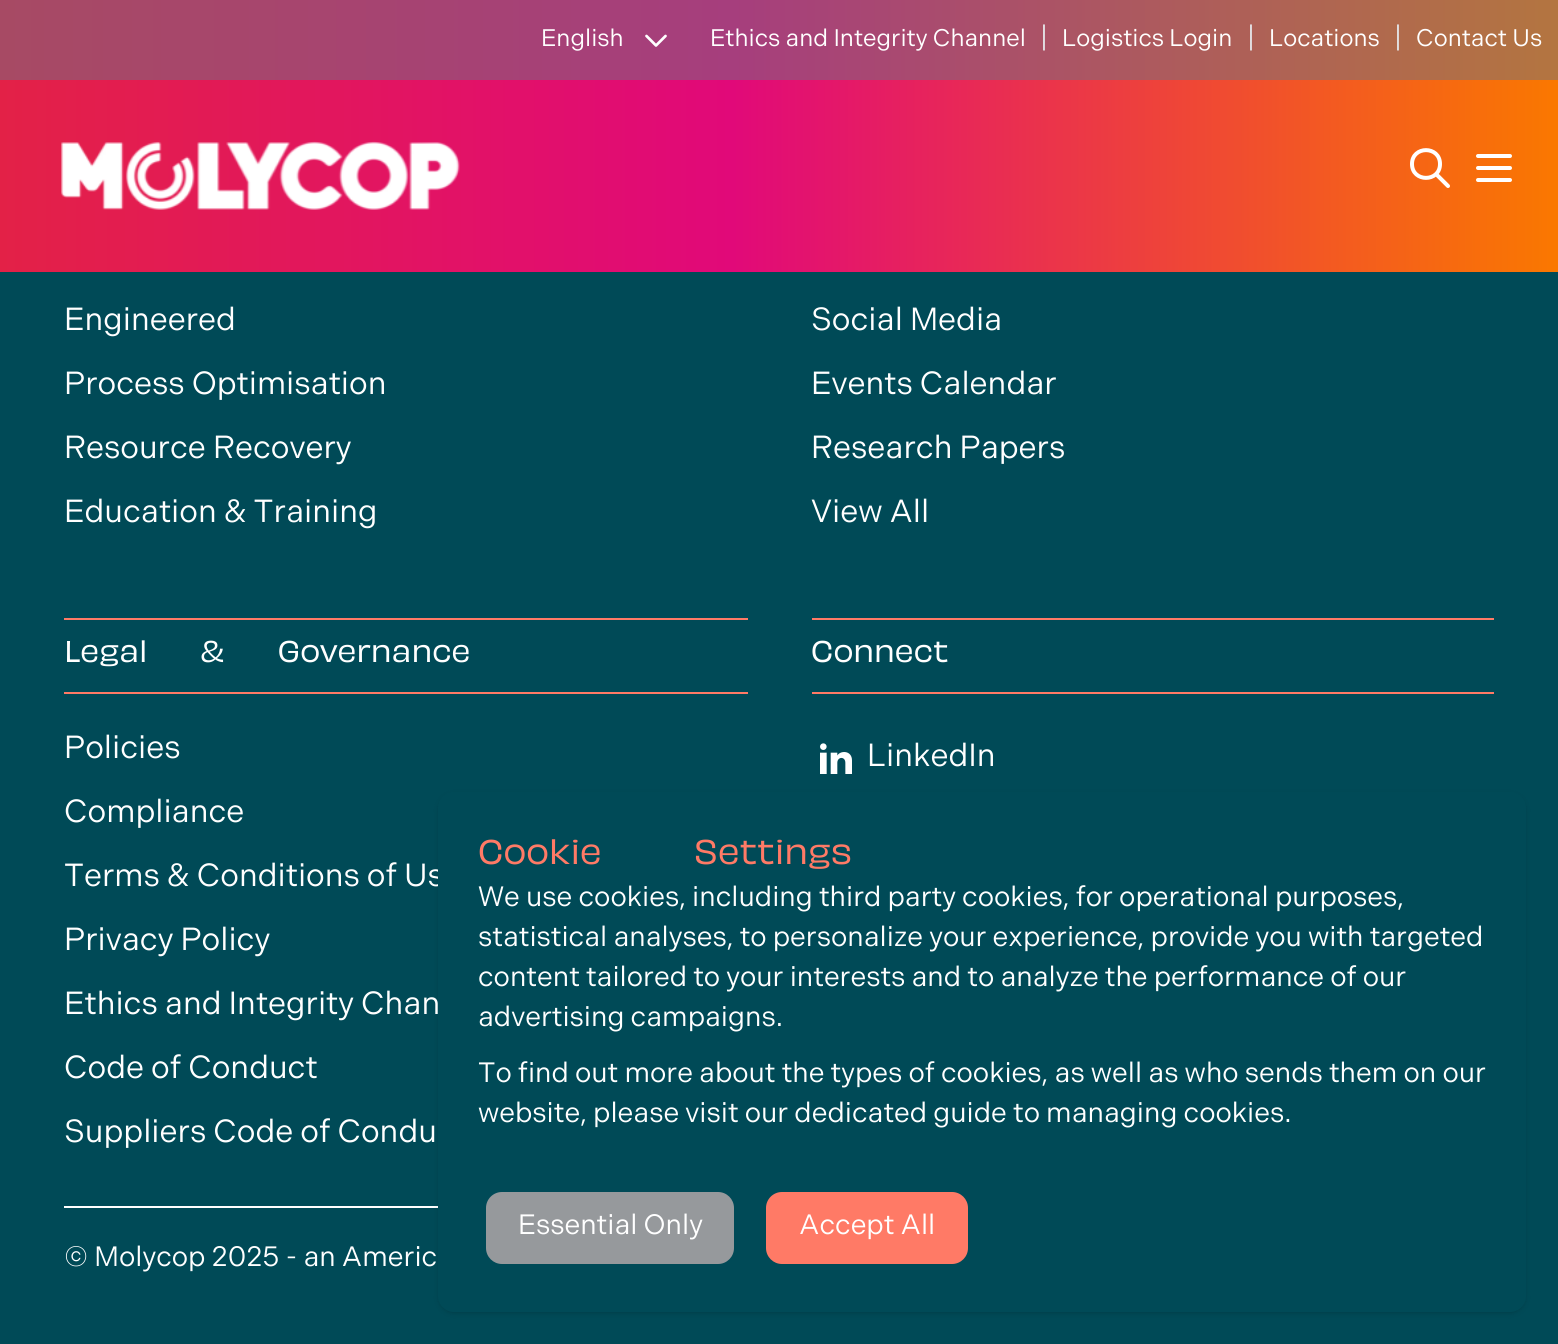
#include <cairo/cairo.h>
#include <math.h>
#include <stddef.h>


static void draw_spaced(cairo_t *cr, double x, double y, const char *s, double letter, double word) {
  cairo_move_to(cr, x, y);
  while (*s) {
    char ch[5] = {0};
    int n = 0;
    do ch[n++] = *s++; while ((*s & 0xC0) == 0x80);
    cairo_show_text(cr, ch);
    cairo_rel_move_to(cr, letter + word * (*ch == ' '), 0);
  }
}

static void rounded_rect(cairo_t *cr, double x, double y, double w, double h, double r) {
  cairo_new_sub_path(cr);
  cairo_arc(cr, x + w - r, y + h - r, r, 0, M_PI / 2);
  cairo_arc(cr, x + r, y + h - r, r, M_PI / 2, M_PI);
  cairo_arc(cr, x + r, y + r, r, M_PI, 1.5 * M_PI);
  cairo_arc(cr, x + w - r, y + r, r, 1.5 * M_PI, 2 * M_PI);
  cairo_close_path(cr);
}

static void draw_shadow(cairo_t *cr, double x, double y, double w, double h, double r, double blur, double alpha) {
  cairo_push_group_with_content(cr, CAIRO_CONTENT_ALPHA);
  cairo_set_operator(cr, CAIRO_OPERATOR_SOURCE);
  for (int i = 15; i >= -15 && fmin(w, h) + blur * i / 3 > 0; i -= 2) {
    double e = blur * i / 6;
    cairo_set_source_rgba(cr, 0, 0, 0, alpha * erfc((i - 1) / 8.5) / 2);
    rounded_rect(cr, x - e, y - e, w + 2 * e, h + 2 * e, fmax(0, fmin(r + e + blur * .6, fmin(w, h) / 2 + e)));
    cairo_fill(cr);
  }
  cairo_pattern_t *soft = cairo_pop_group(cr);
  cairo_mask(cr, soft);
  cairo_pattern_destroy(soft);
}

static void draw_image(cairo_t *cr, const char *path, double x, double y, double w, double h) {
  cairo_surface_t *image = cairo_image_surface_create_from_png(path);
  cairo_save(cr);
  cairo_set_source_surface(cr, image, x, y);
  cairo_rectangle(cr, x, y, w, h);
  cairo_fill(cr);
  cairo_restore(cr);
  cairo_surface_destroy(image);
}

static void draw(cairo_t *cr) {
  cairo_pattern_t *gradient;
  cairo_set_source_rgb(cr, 0, 74 / 255.0, 87 / 255.0);
  cairo_paint(cr);
  gradient = cairo_pattern_create_linear(0, 136, 1558, 136);
  cairo_pattern_add_color_stop_rgba(gradient, 0, 227 / 255.0, 33 / 255.0, 71 / 255.0, 1);
  cairo_pattern_add_color_stop_rgba(gradient, 0.47, 225 / 255.0, 9 / 255.0, 121 / 255.0, 1);
  cairo_pattern_add_color_stop_rgba(gradient, 1, 250 / 255.0, 120 / 255.0, 0, 1);
  cairo_set_source(cr, gradient);
  cairo_pattern_destroy(gradient);
  cairo_rectangle(cr, 0, 80, 1558, 192);
  cairo_fill(cr);
  gradient = cairo_pattern_create_linear(0, 136, 1558, 136);
  cairo_pattern_add_color_stop_rgba(gradient, 0, 167 / 255.0, 74 / 255.0, 100 / 255.0, 1);
  cairo_pattern_add_color_stop_rgba(gradient, 0.47, 166 / 255.0, 62 / 255.0, 125 / 255.0, 1);
  cairo_pattern_add_color_stop_rgba(gradient, 1, 179 / 255.0, 117 / 255.0, 64 / 255.0, 1);
  cairo_set_source(cr, gradient);
  cairo_pattern_destroy(gradient);
  cairo_rectangle(cr, 0, 0, 1558, 80);
  cairo_fill(cr);
  cairo_new_path(cr);
  cairo_move_to(cr, 665.5, 36);
  cairo_line_to(cr, 656, 45.5);
  cairo_line_to(cr, 646.5, 36);
  cairo_set_source_rgb(cr, 1, 1, 1);
  cairo_set_line_width(cr, 2.7);
  cairo_set_line_cap(cr, CAIRO_LINE_CAP_ROUND);
  cairo_set_line_join(cr, CAIRO_LINE_JOIN_ROUND);
  cairo_stroke(cr);
  draw_image(cr, "images/1.png", 61, 141, 399, 69);
  cairo_new_path(cr);
  cairo_move_to(cr, 1448, 186);
  cairo_line_to(cr, 1436, 174);
  cairo_move_to(cr, 1440, 164);
  cairo_curve_to(cr, 1440, 182.5, 1412, 182.5, 1412, 164);
  cairo_curve_to(cr, 1412, 145.5, 1440, 145.5, 1440, 164);
  cairo_close_path(cr);
  cairo_set_line_width(cr, 4);
  cairo_stroke(cr);
  cairo_new_path(cr);
  cairo_move_to(cr, 1478, 156);
  cairo_line_to(cr, 1510, 156);
  cairo_move_to(cr, 1478, 168);
  cairo_line_to(cr, 1510, 168);
  cairo_move_to(cr, 1478, 180);
  cairo_line_to(cr, 1510, 180);
  cairo_stroke(cr);
  cairo_set_source_rgb(cr, 1, 122 / 255.0, 102 / 255.0);
  cairo_rectangle(cr, 64, 618, 684, 2);
  cairo_fill(cr);
  cairo_rectangle(cr, 64, 692, 684, 2);
  cairo_fill(cr);
  cairo_rectangle(cr, 812, 618, 682, 2);
  cairo_fill(cr);
  cairo_rectangle(cr, 812, 692, 682, 2);
  cairo_fill(cr);
  draw_image(cr, "images/2.png", 820, 743, 32, 31);
  cairo_set_source_rgb(cr, 1, 1, 1);
  cairo_rectangle(cr, 64, 1206, 374, 2);
  cairo_fill(cr);
  cairo_set_source_rgb(cr, 0, 0, 0);
  draw_shadow(cr, 440, 796, 1084, 516, 14, 2, 0.1);
  draw_shadow(cr, 438, 794, 1088, 520, 16, 3, 0.1);
  cairo_select_font_face(cr, "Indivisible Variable", CAIRO_FONT_SLANT_NORMAL, CAIRO_FONT_WEIGHT_NORMAL);
  cairo_set_font_size(cr, 24);
  cairo_set_source_rgb(cr, 1, 1, 1);
  cairo_move_to(cr, 541, 46);
  cairo_show_text(cr, "English");
  cairo_move_to(cr, 710, 46);
  cairo_show_text(cr, "Ethics and Integrity Channel");
  cairo_set_font_size(cr, 28);
  cairo_set_source_rgb(cr, 229 / 255.0, 231 / 255.0, 235 / 255.0);
  cairo_move_to(cr, 1040, 46);
  cairo_show_text(cr, "|");
  cairo_set_font_size(cr, 24);
  cairo_set_source_rgb(cr, 1, 1, 1);
  cairo_move_to(cr, 1062, 46);
  cairo_show_text(cr, "Logistics Login");
  cairo_set_font_size(cr, 28);
  cairo_set_source_rgb(cr, 229 / 255.0, 231 / 255.0, 235 / 255.0);
  cairo_move_to(cr, 1247, 46);
  cairo_show_text(cr, "|");
  cairo_set_font_size(cr, 24);
  cairo_set_source_rgb(cr, 1, 1, 1);
  cairo_move_to(cr, 1269, 46);
  cairo_show_text(cr, "Locations");
  cairo_set_font_size(cr, 28);
  cairo_set_source_rgb(cr, 229 / 255.0, 231 / 255.0, 235 / 255.0);
  cairo_move_to(cr, 1394, 46);
  cairo_show_text(cr, "|");
  cairo_set_font_size(cr, 24);
  cairo_set_source_rgb(cr, 1, 1, 1);
  cairo_move_to(cr, 1416, 46);
  cairo_show_text(cr, "Contact Us");
  cairo_set_font_size(cr, 32);
  cairo_move_to(cr, 64, 330);
  cairo_show_text(cr, "Engineered");
  cairo_move_to(cr, 64, 394);
  cairo_show_text(cr, "Process Optimisation");
  cairo_move_to(cr, 64, 458);
  cairo_show_text(cr, "Resource Recovery");
  cairo_move_to(cr, 64, 522);
  cairo_show_text(cr, "Education & Training");
  cairo_move_to(cr, 811, 330);
  cairo_show_text(cr, "Social Media");
  cairo_move_to(cr, 811, 394);
  cairo_show_text(cr, "Events Calendar");
  cairo_move_to(cr, 811, 458);
  cairo_show_text(cr, "Research Papers");
  cairo_move_to(cr, 811, 522);
  cairo_show_text(cr, "View All");
  cairo_select_font_face(cr, "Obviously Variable", CAIRO_FONT_SLANT_NORMAL, CAIRO_FONT_WEIGHT_NORMAL);
  cairo_set_font_size(cr, 28);
  draw_spaced(cr, 64, 662, "Legal & Governance", 0, 45);
  cairo_select_font_face(cr, "Indivisible Variable", CAIRO_FONT_SLANT_NORMAL, CAIRO_FONT_WEIGHT_NORMAL);
  cairo_set_font_size(cr, 32);
  cairo_move_to(cr, 64, 758);
  cairo_show_text(cr, "Policies");
  cairo_move_to(cr, 64, 822);
  cairo_show_text(cr, "Compliance");
  cairo_move_to(cr, 64, 886);
  cairo_show_text(cr, "Terms & Conditions of Us");
  cairo_move_to(cr, 64, 950);
  cairo_show_text(cr, "Privacy Policy");
  cairo_move_to(cr, 64, 1014);
  cairo_show_text(cr, "Ethics and Integrity Chan");
  cairo_move_to(cr, 64, 1078);
  cairo_show_text(cr, "Code of Conduct");
  cairo_move_to(cr, 64, 1142);
  cairo_show_text(cr, "Suppliers Code of Condu");
  cairo_select_font_face(cr, "Obviously Variable", CAIRO_FONT_SLANT_NORMAL, CAIRO_FONT_WEIGHT_NORMAL);
  cairo_set_font_size(cr, 28);
  cairo_move_to(cr, 811, 662);
  cairo_show_text(cr, "Connect");
  cairo_select_font_face(cr, "Indivisible Variable", CAIRO_FONT_SLANT_NORMAL, CAIRO_FONT_WEIGHT_NORMAL);
  cairo_set_font_size(cr, 32);
  cairo_move_to(cr, 867, 766);
  cairo_show_text(cr, "LinkedIn");
  cairo_set_font_size(cr, 28);
  cairo_move_to(cr, 64, 1266);
  cairo_show_text(cr, "© Molycop 2025 - an Americ");
  cairo_set_source_rgb(cr, 0, 74 / 255.0, 87 / 255.0);
  rounded_rect(cr, 438, 792, 1088, 520, 16);
  cairo_fill(cr);
  cairo_select_font_face(cr, "Obviously Variable", CAIRO_FONT_SLANT_NORMAL, CAIRO_FONT_WEIGHT_NORMAL);
  cairo_set_font_size(cr, 32);
  cairo_set_source_rgb(cr, 1, 122 / 255.0, 102 / 255.0);
  draw_spaced(cr, 478, 864, "Cookie Settings", 0, 82);
  cairo_select_font_face(cr, "Indivisible Variable", CAIRO_FONT_SLANT_NORMAL, CAIRO_FONT_WEIGHT_NORMAL);
  cairo_set_font_size(cr, 28);
  cairo_set_source_rgb(cr, 1, 1, 1);
  cairo_move_to(cr, 478, 906);
  cairo_show_text(cr, "We use cookies, including third party cookies, for operational purposes,");
  cairo_move_to(cr, 478, 946);
  cairo_show_text(cr, "statistical analyses, to personalize your experience, provide you with targeted");
  cairo_move_to(cr, 478, 986);
  cairo_show_text(cr, "content tailored to your interests and to analyze the performance of our");
  cairo_move_to(cr, 478, 1026);
  cairo_show_text(cr, "advertising campaigns.");
  cairo_move_to(cr, 478, 1082);
  cairo_show_text(cr, "To find out more about the types of cookies, as well as who sends them on our");
  cairo_move_to(cr, 478, 1122);
  cairo_show_text(cr, "website, please visit our dedicated guide to managing cookies.");
  cairo_set_source_rgb(cr, 150 / 255.0, 153 / 255.0, 156 / 255.0);
  rounded_rect(cr, 486, 1192, 248, 72, 16);
  cairo_fill(cr);
  cairo_set_source_rgb(cr, 1, 1, 1);
  cairo_move_to(cr, 518, 1234);
  cairo_show_text(cr, "Essential Only");
  cairo_set_source_rgb(cr, 1, 122 / 255.0, 102 / 255.0);
  rounded_rect(cr, 766, 1192, 202, 72, 16);
  cairo_fill(cr);
  cairo_set_source_rgb(cr, 1, 1, 1);
  cairo_move_to(cr, 799, 1234);
  cairo_show_text(cr, "Accept All");
}

int main(void) {
  cairo_surface_t *surface = cairo_image_surface_create(CAIRO_FORMAT_RGB24, 1558, 1344);
  cairo_t *cr = cairo_create(surface);
  cairo_font_options_t *options = cairo_font_options_create();
  cairo_font_options_set_hint_metrics(options, CAIRO_HINT_METRICS_OFF);
  cairo_font_options_set_hint_style(options, CAIRO_HINT_STYLE_NONE);
  cairo_set_font_options(cr, options);
  cairo_set_miter_limit(cr, 4);
  draw(cr);
  cairo_surface_write_to_png(surface, "out.png");
  cairo_font_options_destroy(options);
  cairo_destroy(cr);
  cairo_surface_destroy(surface);
  return 0;
}
